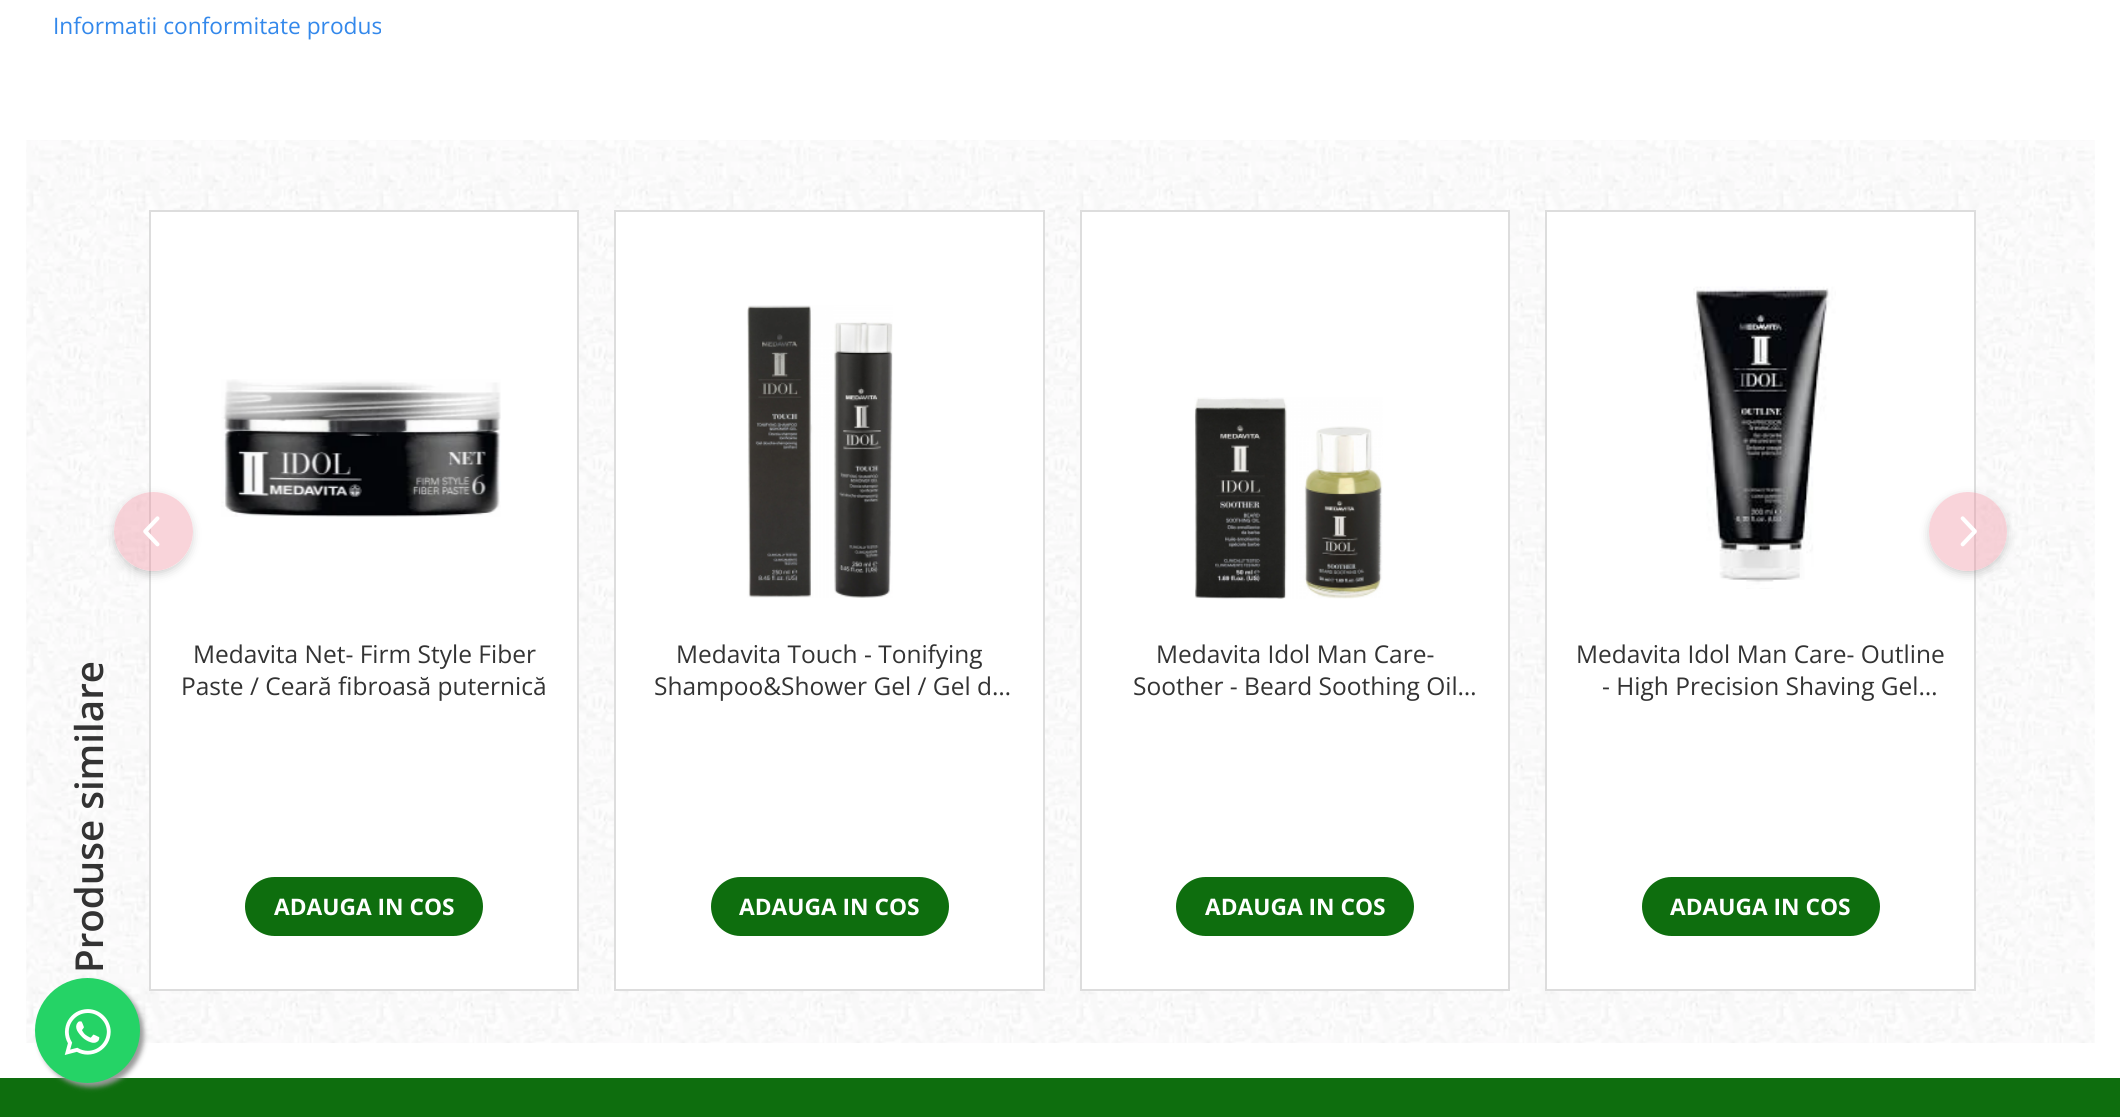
#include <cairo/cairo.h>
#include <math.h>
#include <stddef.h>


static void rounded_rect(cairo_t *cr, double x, double y, double w, double h, double r) {
  cairo_new_sub_path(cr);
  cairo_arc(cr, x + w - r, y + h - r, r, 0, M_PI / 2);
  cairo_arc(cr, x + r, y + h - r, r, M_PI / 2, M_PI);
  cairo_arc(cr, x + r, y + r, r, M_PI, 1.5 * M_PI);
  cairo_arc(cr, x + w - r, y + r, r, 1.5 * M_PI, 2 * M_PI);
  cairo_close_path(cr);
}

static void draw_shadow(cairo_t *cr, double x, double y, double w, double h, double r, double blur, double alpha) {
  cairo_push_group_with_content(cr, CAIRO_CONTENT_ALPHA);
  cairo_set_operator(cr, CAIRO_OPERATOR_SOURCE);
  for (int i = 15; i >= -15 && fmin(w, h) + blur * i / 3 > 0; i -= 2) {
    double e = blur * i / 6;
    cairo_set_source_rgba(cr, 0, 0, 0, alpha * erfc((i - 1) / 8.5) / 2);
    rounded_rect(cr, x - e, y - e, w + 2 * e, h + 2 * e, fmax(0, fmin(r + e + blur * .6, fmin(w, h) / 2 + e)));
    cairo_fill(cr);
  }
  cairo_pattern_t *soft = cairo_pop_group(cr);
  cairo_mask(cr, soft);
  cairo_pattern_destroy(soft);
}

static void draw_image(cairo_t *cr, const char *path, double x, double y, double w, double h) {
  cairo_surface_t *image = cairo_image_surface_create_from_png(path);
  cairo_save(cr);
  cairo_set_source_surface(cr, image, x, y);
  cairo_rectangle(cr, x, y, w, h);
  cairo_fill(cr);
  cairo_restore(cr);
  cairo_surface_destroy(image);
}

static void draw(cairo_t *cr) {
  cairo_set_source_rgb(cr, 1, 1, 1);
  cairo_paint(cr);
  draw_image(cr, "images/1.png", 26, 140, 2069, 903);
  cairo_set_source_rgb(cr, 1, 1, 1);
  cairo_rectangle(cr, 150, 211, 428, 779);
  cairo_fill_preserve(cr);
  cairo_set_source_rgb(cr, 221 / 255.0, 221 / 255.0, 221 / 255.0);
  cairo_stroke(cr);
  cairo_save(cr);
  cairo_set_fill_rule(cr, CAIRO_FILL_RULE_EVEN_ODD);
  cairo_new_path(cr);
  cairo_move_to(cr, 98, 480);
  cairo_line_to(cr, 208, 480);
  cairo_line_to(cr, 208, 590);
  cairo_line_to(cr, 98, 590);
  cairo_close_path(cr);
  cairo_move_to(cr, 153.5, 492);
  cairo_curve_to(cr, 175.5, 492, 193, 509.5, 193, 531.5);
  cairo_curve_to(cr, 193, 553.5, 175.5, 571, 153.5, 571);
  cairo_curve_to(cr, 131.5, 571, 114, 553.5, 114, 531.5);
  cairo_curve_to(cr, 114, 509.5, 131.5, 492, 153.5, 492);
  cairo_close_path(cr);
  cairo_clip(cr);
  cairo_set_source_rgb(cr, 0, 0, 0);
  draw_shadow(cr, 117, 499, 72, 72, 36, 6, 0.3);
  cairo_restore(cr);
  cairo_set_source_rgba(cr, 239 / 255.0, 142 / 255.0, 159 / 255.0, 0.38);
  cairo_arc(cr, 153.5, 531.5, 39.5, 0, 2 * M_PI);
  cairo_fill(cr);
  draw_image(cr, "images/2.png", 143, 516, 17, 31);
  cairo_set_source_rgb(cr, 1, 1, 1);
  cairo_rectangle(cr, 1546, 211, 429, 779);
  cairo_fill_preserve(cr);
  cairo_set_source_rgb(cr, 221 / 255.0, 221 / 255.0, 221 / 255.0);
  cairo_stroke(cr);
  cairo_save(cr);
  cairo_set_fill_rule(cr, CAIRO_FILL_RULE_EVEN_ODD);
  cairo_new_path(cr);
  cairo_move_to(cr, 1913, 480);
  cairo_line_to(cr, 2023, 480);
  cairo_line_to(cr, 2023, 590);
  cairo_line_to(cr, 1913, 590);
  cairo_close_path(cr);
  cairo_move_to(cr, 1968, 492);
  cairo_curve_to(cr, 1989.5, 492, 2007, 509.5, 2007, 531);
  cairo_line_to(cr, 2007, 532);
  cairo_curve_to(cr, 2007, 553.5, 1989.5, 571, 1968, 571);
  cairo_curve_to(cr, 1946.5, 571, 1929, 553.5, 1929, 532);
  cairo_line_to(cr, 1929, 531);
  cairo_curve_to(cr, 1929, 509.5, 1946.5, 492, 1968, 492);
  cairo_close_path(cr);
  cairo_clip(cr);
  cairo_set_source_rgb(cr, 0, 0, 0);
  draw_shadow(cr, 1932, 499, 72, 72, 36, 6, 0.3);
  cairo_restore(cr);
  cairo_set_source_rgba(cr, 239 / 255.0, 142 / 255.0, 159 / 255.0, 0.38);
  rounded_rect(cr, 1929, 492, 78, 79, 39);
  cairo_fill(cr);
  draw_image(cr, "images/3.png", 1960, 516, 17, 31);
  draw_image(cr, "images/4.png", 221, 379, 280, 138);
  cairo_set_source_rgb(cr, 14 / 255.0, 110 / 255.0, 14 / 255.0);
  rounded_rect(cr, 246, 878, 236, 57, 28.5);
  cairo_fill_preserve(cr);
  cairo_stroke(cr);
  cairo_set_source_rgb(cr, 1, 1, 1);
  cairo_rectangle(cr, 615, 211, 429, 779);
  cairo_fill_preserve(cr);
  cairo_set_source_rgb(cr, 221 / 255.0, 221 / 255.0, 221 / 255.0);
  cairo_stroke(cr);
  draw_image(cr, "images/5.png", 747, 305, 146, 293);
  cairo_set_source_rgb(cr, 14 / 255.0, 110 / 255.0, 14 / 255.0);
  rounded_rect(cr, 712, 878, 236, 57, 28.5);
  cairo_fill_preserve(cr);
  cairo_stroke(cr);
  cairo_set_source_rgb(cr, 1, 1, 1);
  cairo_rectangle(cr, 1081, 211, 428, 779);
  cairo_fill_preserve(cr);
  cairo_set_source_rgb(cr, 221 / 255.0, 221 / 255.0, 221 / 255.0);
  cairo_stroke(cr);
  draw_image(cr, "images/6.png", 1194, 397, 189, 202);
  cairo_set_source_rgb(cr, 14 / 255.0, 110 / 255.0, 14 / 255.0);
  rounded_rect(cr, 1177, 878, 236, 57, 28.5);
  cairo_fill_preserve(cr);
  cairo_stroke(cr);
  draw_image(cr, "images/7.png", 1693, 286, 143, 303);
  rounded_rect(cr, 1643, 878, 236, 57, 28.5);
  cairo_fill_preserve(cr);
  cairo_stroke(cr);
  cairo_rectangle(cr, 0, 1078, 2120, 39);
  cairo_fill(cr);
  cairo_set_source_rgb(cr, 153 / 255.0, 153 / 255.0, 153 / 255.0);
  draw_shadow(cr, 39, 982, 105, 105, 52.5, 2.5, 1);
  cairo_set_source_rgb(cr, 37 / 255.0, 211 / 255.0, 102 / 255.0);
  cairo_arc(cr, 87.5, 1030.5, 52.5, 0, 2 * M_PI);
  cairo_fill(cr);
  draw_image(cr, "images/8.png", 64, 1009, 47, 46);
  cairo_select_font_face(cr, "Open Sans", CAIRO_FONT_SLANT_NORMAL, CAIRO_FONT_WEIGHT_NORMAL);
  cairo_set_font_size(cr, 22.75);
  cairo_set_source_rgb(cr, 51 / 255.0, 136 / 255.0, 235 / 255.0);
  cairo_move_to(cr, 53, 34);
  cairo_show_text(cr, "Informatii conformitate produs");
  cairo_select_font_face(cr, "Open Sans SemiBold", CAIRO_FONT_SLANT_NORMAL, CAIRO_FONT_WEIGHT_NORMAL);
  cairo_set_font_size(cr, 38.5);
  cairo_set_source_rgb(cr, 51 / 255.0, 51 / 255.0, 51 / 255.0);
  cairo_save(cr);
  cairo_translate(cr, 103, 973);
  cairo_rotate(cr, -90 * M_PI / 180);
  cairo_move_to(cr, 0, 0);
  cairo_show_text(cr, "Produse similare");
  cairo_restore(cr);
  cairo_select_font_face(cr, "Open Sans", CAIRO_FONT_SLANT_NORMAL, CAIRO_FONT_WEIGHT_NORMAL);
  cairo_set_font_size(cr, 24.5);
  cairo_move_to(cr, 193, 663);
  cairo_show_text(cr, "Medavita Net- Firm Style Fiber");
  cairo_move_to(cr, 181, 695);
  cairo_show_text(cr, "Paste / Ceară fibroasă puternică");
  cairo_select_font_face(cr, "Open Sans", CAIRO_FONT_SLANT_NORMAL, CAIRO_FONT_WEIGHT_BOLD);
  cairo_set_font_size(cr, 22.75);
  cairo_set_source_rgb(cr, 1, 1, 1);
  cairo_move_to(cr, 274, 915);
  cairo_show_text(cr, "ADAUGA IN COS");
  cairo_select_font_face(cr, "Open Sans", CAIRO_FONT_SLANT_NORMAL, CAIRO_FONT_WEIGHT_NORMAL);
  cairo_set_font_size(cr, 24.5);
  cairo_set_source_rgb(cr, 51 / 255.0, 51 / 255.0, 51 / 255.0);
  cairo_move_to(cr, 676, 663);
  cairo_show_text(cr, "Medavita Touch - Tonifying");
  cairo_move_to(cr, 654, 695);
  cairo_show_text(cr, "Shampoo&Shower Gel / Gel d…");
  cairo_select_font_face(cr, "Open Sans", CAIRO_FONT_SLANT_NORMAL, CAIRO_FONT_WEIGHT_BOLD);
  cairo_set_font_size(cr, 22.75);
  cairo_set_source_rgb(cr, 1, 1, 1);
  cairo_move_to(cr, 739, 915);
  cairo_show_text(cr, "ADAUGA IN COS");
  cairo_select_font_face(cr, "Open Sans", CAIRO_FONT_SLANT_NORMAL, CAIRO_FONT_WEIGHT_NORMAL);
  cairo_set_font_size(cr, 24.5);
  cairo_set_source_rgb(cr, 51 / 255.0, 51 / 255.0, 51 / 255.0);
  cairo_move_to(cr, 1156, 663);
  cairo_show_text(cr, "Medavita Idol Man Care-");
  cairo_move_to(cr, 1133, 695);
  cairo_show_text(cr, "Soother - Beard Soothing Oil…");
  cairo_select_font_face(cr, "Open Sans", CAIRO_FONT_SLANT_NORMAL, CAIRO_FONT_WEIGHT_BOLD);
  cairo_set_font_size(cr, 22.75);
  cairo_set_source_rgb(cr, 1, 1, 1);
  cairo_move_to(cr, 1205, 915);
  cairo_show_text(cr, "ADAUGA IN COS");
  cairo_select_font_face(cr, "Open Sans", CAIRO_FONT_SLANT_NORMAL, CAIRO_FONT_WEIGHT_NORMAL);
  cairo_set_font_size(cr, 24.5);
  cairo_set_source_rgb(cr, 51 / 255.0, 51 / 255.0, 51 / 255.0);
  cairo_move_to(cr, 1576, 663);
  cairo_show_text(cr, "Medavita Idol Man Care- Outline");
  cairo_move_to(cr, 1602, 695);
  cairo_show_text(cr, "- High Precision Shaving Gel…");
  cairo_select_font_face(cr, "Open Sans", CAIRO_FONT_SLANT_NORMAL, CAIRO_FONT_WEIGHT_BOLD);
  cairo_set_font_size(cr, 22.75);
  cairo_set_source_rgb(cr, 1, 1, 1);
  cairo_move_to(cr, 1670, 915);
  cairo_show_text(cr, "ADAUGA IN COS");
}

int main(void) {
  cairo_surface_t *surface = cairo_image_surface_create(CAIRO_FORMAT_RGB24, 2120, 1117);
  cairo_t *cr = cairo_create(surface);
  cairo_font_options_t *options = cairo_font_options_create();
  cairo_font_options_set_hint_metrics(options, CAIRO_HINT_METRICS_OFF);
  cairo_font_options_set_hint_style(options, CAIRO_HINT_STYLE_NONE);
  cairo_set_font_options(cr, options);
  cairo_set_miter_limit(cr, 4);
  draw(cr);
  cairo_surface_write_to_png(surface, "out.png");
  cairo_font_options_destroy(options);
  cairo_destroy(cr);
  cairo_surface_destroy(surface);
  return 0;
}
